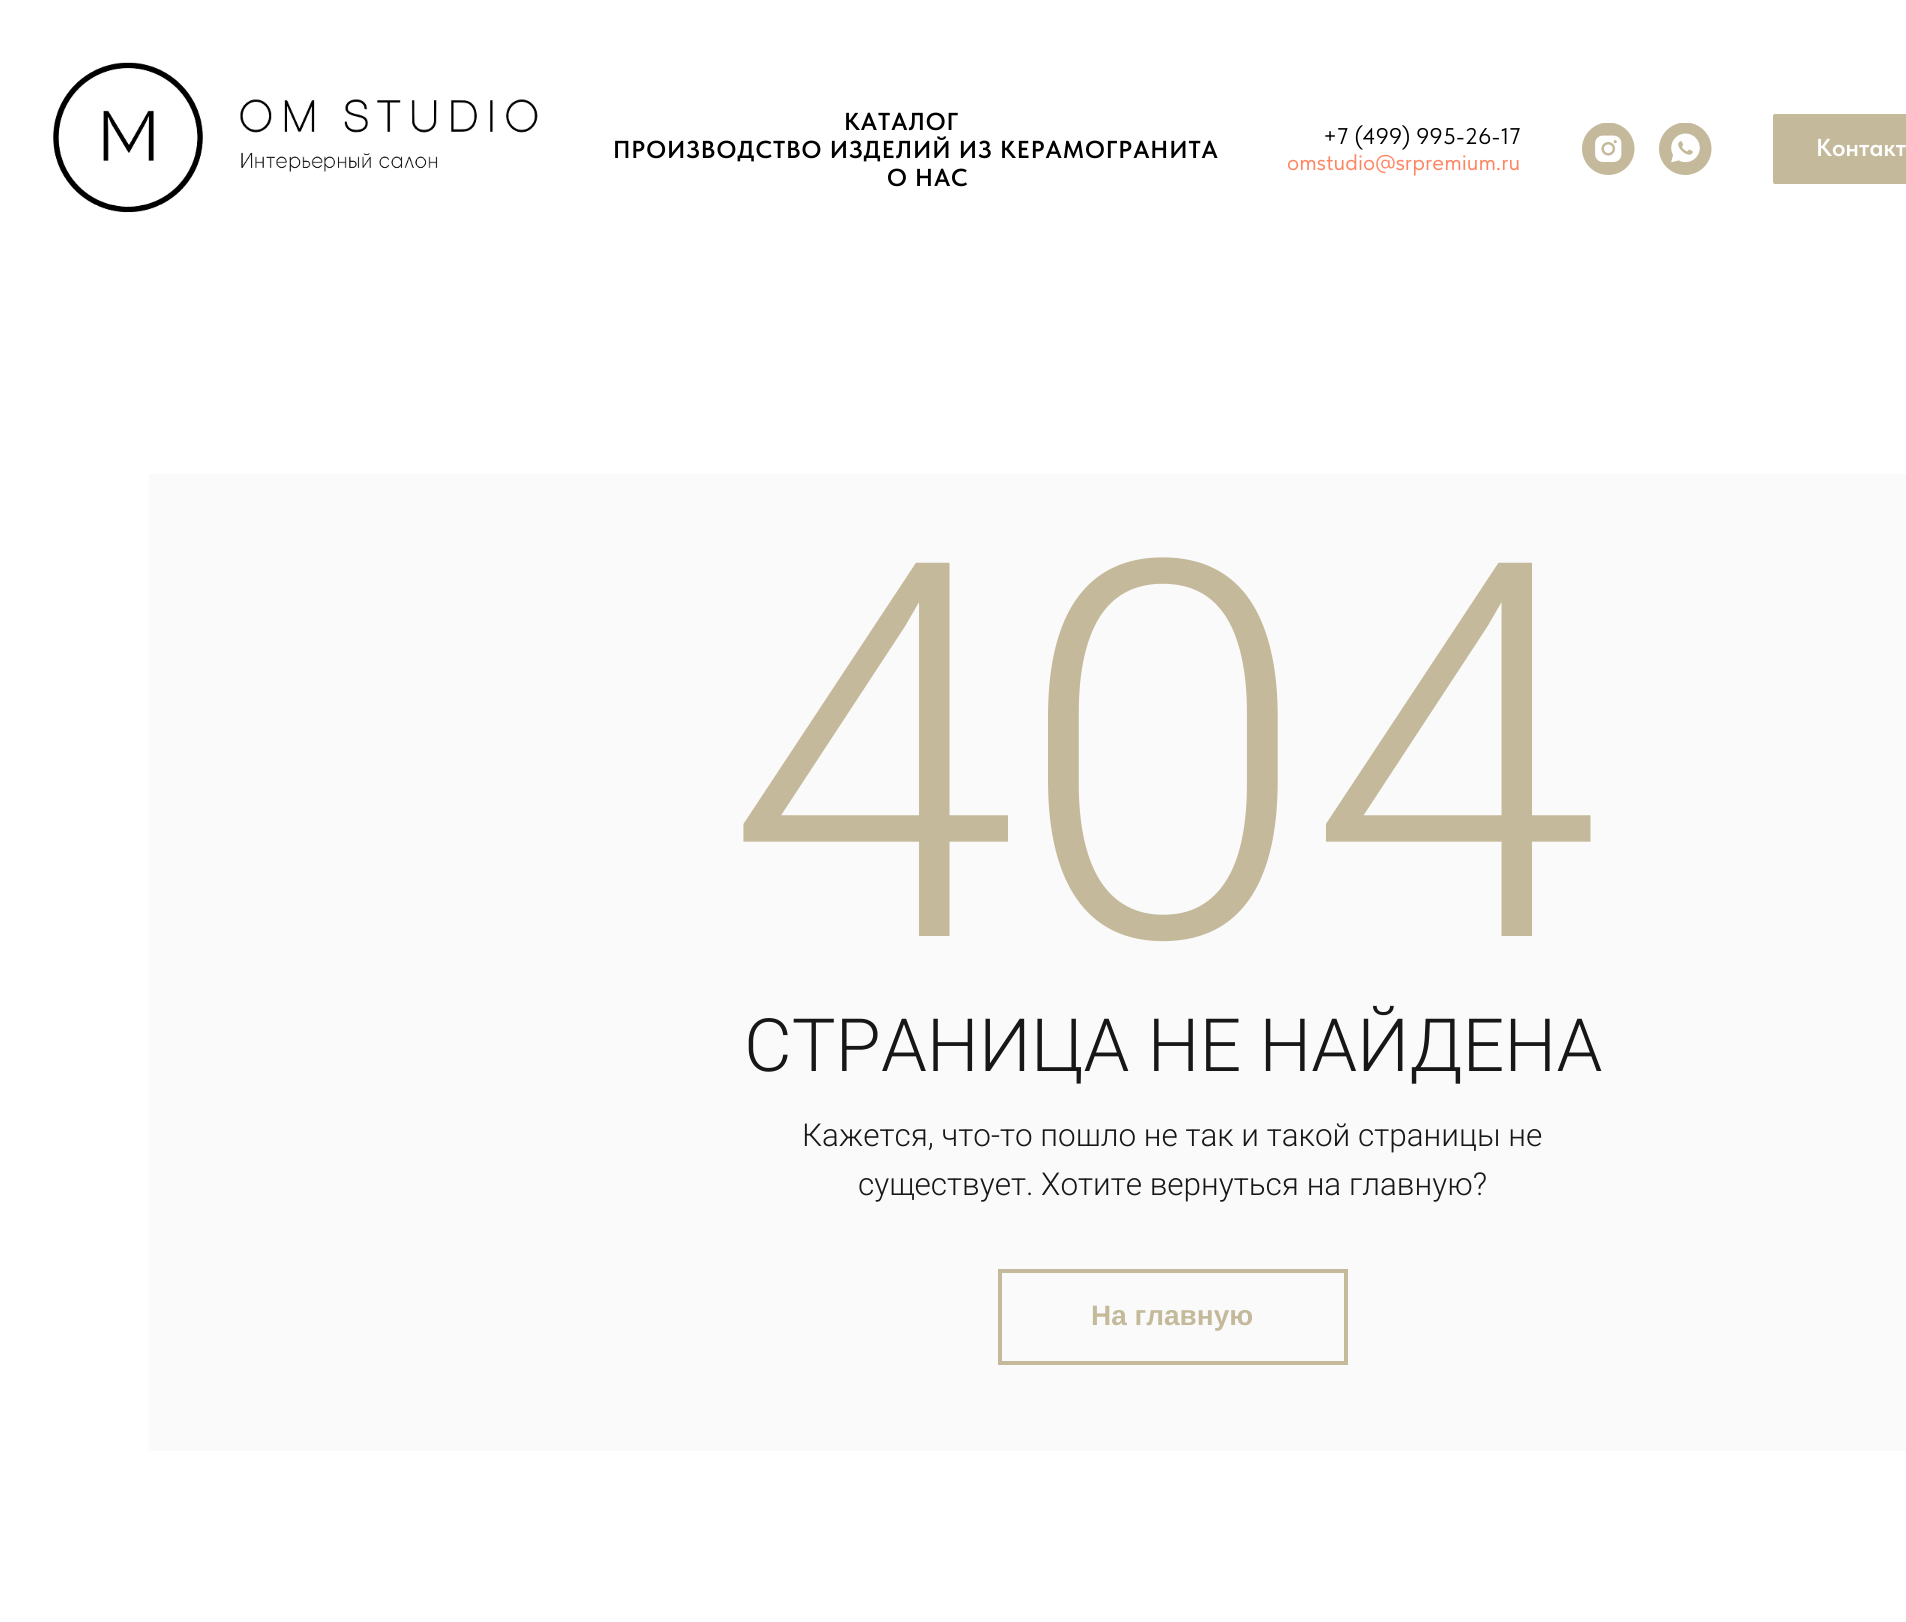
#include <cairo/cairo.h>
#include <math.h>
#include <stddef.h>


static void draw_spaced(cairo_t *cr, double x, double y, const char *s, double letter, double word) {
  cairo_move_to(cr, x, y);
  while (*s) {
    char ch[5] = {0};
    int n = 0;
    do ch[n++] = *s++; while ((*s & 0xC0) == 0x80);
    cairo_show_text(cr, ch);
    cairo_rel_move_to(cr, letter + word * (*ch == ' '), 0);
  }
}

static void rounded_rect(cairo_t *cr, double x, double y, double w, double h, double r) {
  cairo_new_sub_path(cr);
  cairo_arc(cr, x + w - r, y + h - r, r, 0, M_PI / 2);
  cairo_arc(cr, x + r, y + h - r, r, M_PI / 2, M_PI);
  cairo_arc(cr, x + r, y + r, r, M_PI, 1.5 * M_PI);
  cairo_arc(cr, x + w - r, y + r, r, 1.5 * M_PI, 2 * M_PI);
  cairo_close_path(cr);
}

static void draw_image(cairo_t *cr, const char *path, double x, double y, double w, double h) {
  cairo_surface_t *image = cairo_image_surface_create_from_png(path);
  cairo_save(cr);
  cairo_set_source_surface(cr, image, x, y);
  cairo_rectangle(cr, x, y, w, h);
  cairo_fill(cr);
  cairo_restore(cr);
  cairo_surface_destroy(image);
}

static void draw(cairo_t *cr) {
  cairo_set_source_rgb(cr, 1, 1, 1);
  cairo_paint(cr);
  draw_image(cr, "images/1.png", 53, 62, 485, 151);
  draw_image(cr, "images/2.png", 1582, 123, 53, 52);
  draw_image(cr, "images/3.png", 1659, 123, 53, 52);
  cairo_set_source_rgb(cr, 196 / 255.0, 185 / 255.0, 154 / 255.0);
  rounded_rect(cr, 1773, 114, 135, 70, 2);
  cairo_fill(cr);
  cairo_set_source_rgb(cr, 250 / 255.0, 250 / 255.0, 250 / 255.0);
  cairo_rectangle(cr, 149, 474, 1757, 977);
  cairo_fill(cr);
  cairo_rectangle(cr, 1000, 1271, 346, 92);
  cairo_set_source_rgb(cr, 196 / 255.0, 185 / 255.0, 154 / 255.0);
  cairo_set_line_width(cr, 4);
  cairo_stroke(cr);
  cairo_select_font_face(cr, "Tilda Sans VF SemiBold", CAIRO_FONT_SLANT_NORMAL, CAIRO_FONT_WEIGHT_NORMAL);
  cairo_set_font_size(cr, 24.5);
  cairo_set_source_rgb(cr, 0, 0, 0);
  draw_spaced(cr, 844, 130, "КАТАЛОГ", 0.9, 0);
  draw_spaced(cr, 613, 158, "ПРОИЗВОДСТВО ИЗДЕЛИЙ ИЗ КЕРАМОГРАНИТА", 0.9, 0);
  draw_spaced(cr, 887, 186, "О НАС", 0.9, 0);
  cairo_select_font_face(cr, "Tilda Sans VF", CAIRO_FONT_SLANT_NORMAL, CAIRO_FONT_WEIGHT_NORMAL);
  cairo_set_font_size(cr, 22.75);
  cairo_move_to(cr, 1323, 144);
  cairo_show_text(cr, "+7 (499) 995-26-17");
  cairo_set_source_rgb(cr, 1, 133 / 255.0, 98 / 255.0);
  cairo_move_to(cr, 1287, 170);
  cairo_show_text(cr, "omstudio@srpremium.ru");
  cairo_select_font_face(cr, "Tilda Sans VF SemiBold", CAIRO_FONT_SLANT_NORMAL, CAIRO_FONT_WEIGHT_NORMAL);
  cairo_set_font_size(cr, 24.5);
  cairo_set_source_rgb(cr, 1, 1, 1);
  cairo_move_to(cr, 1816, 156);
  cairo_show_text(cr, "Контакт");
  cairo_select_font_face(cr, "Roboto Light", CAIRO_FONT_SLANT_NORMAL, CAIRO_FONT_WEIGHT_NORMAL);
  cairo_set_font_size(cr, 525);
  cairo_set_source_rgb(cr, 196 / 255.0, 185 / 255.0, 154 / 255.0);
  cairo_move_to(cr, 726, 936);
  cairo_show_text(cr, "404");
  cairo_set_font_size(cr, 73.5);
  cairo_set_source_rgb(cr, 23 / 255.0, 23 / 255.0, 23 / 255.0);
  cairo_move_to(cr, 744, 1071);
  cairo_show_text(cr, "СТРАНИЦА НЕ НАЙДЕНА");
  cairo_set_font_size(cr, 31.5);
  cairo_move_to(cr, 802, 1146);
  cairo_show_text(cr, "Кажется, что-то пошло не так и такой страницы не");
  cairo_move_to(cr, 858, 1195);
  cairo_show_text(cr, "существует. Хотите вернуться на главную?");
  cairo_select_font_face(cr, "Liberation Sans", CAIRO_FONT_SLANT_NORMAL, CAIRO_FONT_WEIGHT_BOLD);
  cairo_set_font_size(cr, 28);
  cairo_set_source_rgb(cr, 196 / 255.0, 185 / 255.0, 154 / 255.0);
  cairo_move_to(cr, 1091, 1325);
  cairo_show_text(cr, "На главную");
}

int main(void) {
  cairo_surface_t *surface = cairo_image_surface_create(CAIRO_FORMAT_RGB24, 1906, 1622);
  cairo_t *cr = cairo_create(surface);
  cairo_font_options_t *options = cairo_font_options_create();
  cairo_font_options_set_hint_metrics(options, CAIRO_HINT_METRICS_OFF);
  cairo_font_options_set_hint_style(options, CAIRO_HINT_STYLE_NONE);
  cairo_set_font_options(cr, options);
  cairo_set_miter_limit(cr, 4);
  draw(cr);
  cairo_surface_write_to_png(surface, "out.png");
  cairo_font_options_destroy(options);
  cairo_destroy(cr);
  cairo_surface_destroy(surface);
  return 0;
}
